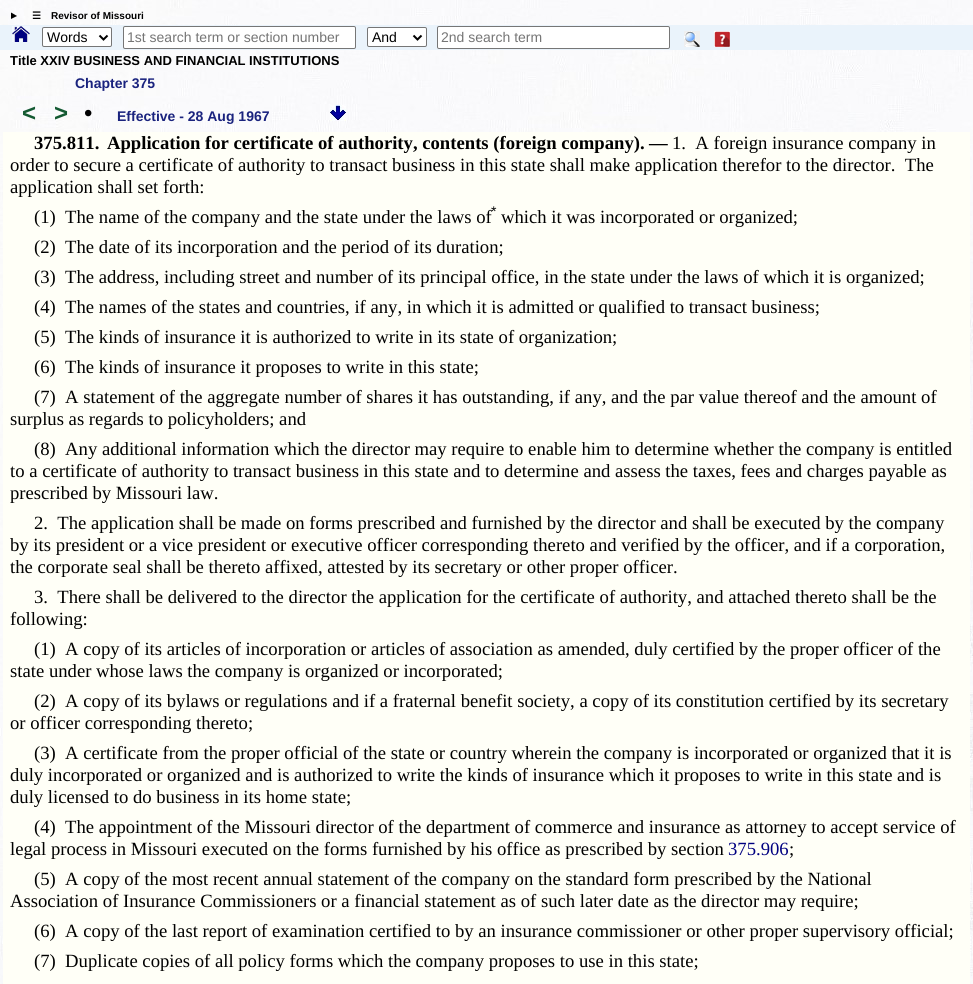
#include <cairo/cairo.h>
#include <math.h>
#include <stddef.h>


static void rounded_rect(cairo_t *cr, double x, double y, double w, double h, double r) {
  cairo_new_sub_path(cr);
  cairo_arc(cr, x + w - r, y + h - r, r, 0, M_PI / 2);
  cairo_arc(cr, x + r, y + h - r, r, M_PI / 2, M_PI);
  cairo_arc(cr, x + r, y + r, r, M_PI, 1.5 * M_PI);
  cairo_arc(cr, x + w - r, y + r, r, 1.5 * M_PI, 2 * M_PI);
  cairo_close_path(cr);
}

static void draw_image(cairo_t *cr, const char *path, double x, double y, double w, double h) {
  cairo_surface_t *image = cairo_image_surface_create_from_png(path);
  cairo_save(cr);
  cairo_set_source_surface(cr, image, x, y);
  cairo_rectangle(cr, x, y, w, h);
  cairo_fill(cr);
  cairo_restore(cr);
  cairo_surface_destroy(image);
}

static void draw(cairo_t *cr) {
  cairo_set_source_rgb(cr, 1, 1, 1);
  cairo_paint(cr);
  draw_image(cr, "images/1.png", 0, 0, 973, 984);
  cairo_set_source_rgb(cr, 0, 0, 0);
  cairo_new_path(cr);
  cairo_move_to(cr, 11, 12.5);
  cairo_line_to(cr, 17, 16);
  cairo_line_to(cr, 11, 19);
  cairo_close_path(cr);
  cairo_fill(cr);
  cairo_set_source_rgb(cr, 234 / 255.0, 243 / 255.0, 251 / 255.0);
  cairo_rectangle(cr, 0, 25, 973, 25);
  cairo_fill(cr);
  draw_image(cr, "images/2.png", 12, 26, 18, 16);
  cairo_set_source_rgb(cr, 1, 1, 1);
  rounded_rect(cr, 42.5, 27.5, 69, 19, 1.5);
  cairo_fill_preserve(cr);
  cairo_set_source_rgb(cr, 118 / 255.0, 118 / 255.0, 118 / 255.0);
  cairo_set_line_width(cr, 1);
  cairo_stroke(cr);
  cairo_new_path(cr);
  cairo_move_to(cr, 99.5, 35.5);
  cairo_line_to(cr, 103.5, 39.5);
  cairo_line_to(cr, 107.5, 35.5);
  cairo_set_source_rgb(cr, 0, 0, 0);
  cairo_set_line_width(cr, 2);
  cairo_stroke(cr);
  cairo_set_source_rgb(cr, 1, 1, 1);
  rounded_rect(cr, 123.5, 26.5, 232, 22, 1.5);
  cairo_fill_preserve(cr);
  cairo_set_source_rgb(cr, 118 / 255.0, 118 / 255.0, 118 / 255.0);
  cairo_set_line_width(cr, 1);
  cairo_stroke(cr);
  cairo_set_source_rgb(cr, 1, 1, 1);
  rounded_rect(cr, 367.5, 27.5, 59, 19, 1.5);
  cairo_fill_preserve(cr);
  cairo_set_source_rgb(cr, 118 / 255.0, 118 / 255.0, 118 / 255.0);
  cairo_stroke(cr);
  cairo_new_path(cr);
  cairo_move_to(cr, 413.5, 35.5);
  cairo_line_to(cr, 417.5, 39.5);
  cairo_line_to(cr, 421.5, 35.5);
  cairo_set_source_rgb(cr, 0, 0, 0);
  cairo_set_line_width(cr, 2);
  cairo_stroke(cr);
  cairo_set_source_rgb(cr, 1, 1, 1);
  rounded_rect(cr, 437.5, 26.5, 232, 22, 1.5);
  cairo_fill_preserve(cr);
  cairo_set_source_rgb(cr, 118 / 255.0, 118 / 255.0, 118 / 255.0);
  cairo_set_line_width(cr, 1);
  cairo_stroke(cr);
  draw_image(cr, "images/3.png", 684, 31, 16, 16);
  draw_image(cr, "images/4.png", 714, 31, 16, 16);
  draw_image(cr, "images/5.png", 330, 105, 16, 16);
  cairo_set_source_rgb(cr, 1, 1, 247 / 255.0);
  cairo_rectangle(cr, 3, 132, 967, 852);
  cairo_fill(cr);
  cairo_select_font_face(cr, "DejaVu Sans", CAIRO_FONT_SLANT_NORMAL, CAIRO_FONT_WEIGHT_BOLD);
  cairo_set_font_size(cr, 10);
  cairo_set_source_rgb(cr, 0, 0, 0);
  cairo_move_to(cr, 32, 19);
  cairo_show_text(cr, "☰");
  cairo_select_font_face(cr, "Liberation Sans", CAIRO_FONT_SLANT_NORMAL, CAIRO_FONT_WEIGHT_BOLD);
  cairo_move_to(cr, 51, 19);
  cairo_show_text(cr, "Revisor of Missouri");
  cairo_select_font_face(cr, "Liberation Sans", CAIRO_FONT_SLANT_NORMAL, CAIRO_FONT_WEIGHT_NORMAL);
  cairo_set_font_size(cr, 14);
  cairo_move_to(cr, 47, 42);
  cairo_show_text(cr, "Words");
  cairo_set_source_rgb(cr, 117 / 255.0, 117 / 255.0, 117 / 255.0);
  cairo_move_to(cr, 127, 42);
  cairo_show_text(cr, "1st search term or section number");
  cairo_set_source_rgb(cr, 0, 0, 0);
  cairo_move_to(cr, 372, 42);
  cairo_show_text(cr, "And");
  cairo_set_source_rgb(cr, 117 / 255.0, 117 / 255.0, 117 / 255.0);
  cairo_move_to(cr, 441, 42);
  cairo_show_text(cr, "2nd search term");
  cairo_select_font_face(cr, "Liberation Sans", CAIRO_FONT_SLANT_NORMAL, CAIRO_FONT_WEIGHT_BOLD);
  cairo_set_font_size(cr, 13);
  cairo_set_source_rgb(cr, 0, 0, 0);
  cairo_move_to(cr, 10, 65);
  cairo_show_text(cr, "Title XXIV BUSINESS AND FINANCIAL INSTITUTIONS");
  cairo_set_font_size(cr, 14);
  cairo_set_source_rgb(cr, 26 / 255.0, 35 / 255.0, 126 / 255.0);
  cairo_move_to(cr, 75, 88);
  cairo_show_text(cr, "Chapter 375");
  cairo_set_font_size(cr, 24);
  cairo_set_source_rgb(cr, 20 / 255.0, 90 / 255.0, 50 / 255.0);
  cairo_move_to(cr, 22, 121);
  cairo_show_text(cr, "<");
  cairo_move_to(cr, 54, 121);
  cairo_show_text(cr, ">");
  cairo_select_font_face(cr, "Liberation Sans", CAIRO_FONT_SLANT_NORMAL, CAIRO_FONT_WEIGHT_NORMAL);
  cairo_set_source_rgb(cr, 0, 0, 0);
  cairo_move_to(cr, 84, 121);
  cairo_show_text(cr, "•");
  cairo_select_font_face(cr, "Liberation Sans", CAIRO_FONT_SLANT_NORMAL, CAIRO_FONT_WEIGHT_BOLD);
  cairo_set_font_size(cr, 14);
  cairo_set_source_rgb(cr, 26 / 255.0, 35 / 255.0, 126 / 255.0);
  cairo_move_to(cr, 117, 121);
  cairo_show_text(cr, "Effective - 28 Aug 1967");
  cairo_select_font_face(cr, "Liberation Serif", CAIRO_FONT_SLANT_NORMAL, CAIRO_FONT_WEIGHT_BOLD);
  cairo_set_font_size(cr, 18.67);
  cairo_set_source_rgb(cr, 0, 0, 0);
  cairo_move_to(cr, 34, 149);
  cairo_show_text(cr, "375.811.");
  cairo_move_to(cr, 107, 149);
  cairo_show_text(cr, "Application for certificate of authority, contents (foreign company).");
  cairo_move_to(cr, 649, 149);
  cairo_show_text(cr, "—");
  cairo_select_font_face(cr, "Liberation Serif", CAIRO_FONT_SLANT_NORMAL, CAIRO_FONT_WEIGHT_NORMAL);
  cairo_move_to(cr, 672, 149);
  cairo_show_text(cr, "1.  A foreign insurance company in");
  cairo_move_to(cr, 10, 171);
  cairo_show_text(cr, "order to secure a certificate of authority to transact business in this state shall make application therefor to the director.  The");
  cairo_move_to(cr, 10, 193);
  cairo_show_text(cr, "application shall set forth:");
  cairo_move_to(cr, 34, 223);
  cairo_show_text(cr, "(1)  The name of the company and the state under the laws of");
  cairo_select_font_face(cr, "Liberation Sans", CAIRO_FONT_SLANT_NORMAL, CAIRO_FONT_WEIGHT_NORMAL);
  cairo_set_font_size(cr, 14);
  cairo_move_to(cr, 491, 216);
  cairo_show_text(cr, "*");
  cairo_select_font_face(cr, "Liberation Serif", CAIRO_FONT_SLANT_NORMAL, CAIRO_FONT_WEIGHT_NORMAL);
  cairo_set_font_size(cr, 18.67);
  cairo_move_to(cr, 501, 223);
  cairo_show_text(cr, "which it was incorporated or organized;");
  cairo_move_to(cr, 34, 253);
  cairo_show_text(cr, "(2)  The date of its incorporation and the period of its duration;");
  cairo_move_to(cr, 34, 283);
  cairo_show_text(cr, "(3)  The address, including street and number of its principal office, in the state under the laws of which it is organized;");
  cairo_move_to(cr, 34, 313);
  cairo_show_text(cr, "(4)  The names of the states and countries, if any, in which it is admitted or qualified to transact business;");
  cairo_move_to(cr, 34, 343);
  cairo_show_text(cr, "(5)  The kinds of insurance it is authorized to write in its state of organization;");
  cairo_move_to(cr, 34, 373);
  cairo_show_text(cr, "(6)  The kinds of insurance it proposes to write in this state;");
  cairo_move_to(cr, 34, 403);
  cairo_show_text(cr, "(7)  A statement of the aggregate number of shares it has outstanding, if any, and the par value thereof and the amount of");
  cairo_move_to(cr, 10, 425);
  cairo_show_text(cr, "surplus as regards to policyholders; and");
  cairo_move_to(cr, 34, 455);
  cairo_show_text(cr, "(8)  Any additional information which the director may require to enable him to determine whether the company is entitled");
  cairo_move_to(cr, 10, 477);
  cairo_show_text(cr, "to a certificate of authority to transact business in this state and to determine and assess the taxes, fees and charges payable as");
  cairo_move_to(cr, 10, 499);
  cairo_show_text(cr, "prescribed by Missouri law.");
  cairo_move_to(cr, 34, 529);
  cairo_show_text(cr, "2.  The application shall be made on forms prescribed and furnished by the director and shall be executed by the company");
  cairo_move_to(cr, 10, 551);
  cairo_show_text(cr, "by its president or a vice president or executive officer corresponding thereto and verified by the officer, and if a corporation,");
  cairo_move_to(cr, 10, 573);
  cairo_show_text(cr, "the corporate seal shall be thereto affixed, attested by its secretary or other proper officer.");
  cairo_move_to(cr, 34, 603);
  cairo_show_text(cr, "3.  There shall be delivered to the director the application for the certificate of authority, and attached thereto shall be the");
  cairo_move_to(cr, 10, 625);
  cairo_show_text(cr, "following:");
  cairo_move_to(cr, 34, 655);
  cairo_show_text(cr, "(1)  A copy of its articles of incorporation or articles of association as amended, duly certified by the proper officer of the");
  cairo_move_to(cr, 10, 677);
  cairo_show_text(cr, "state under whose laws the company is organized or incorporated;");
  cairo_move_to(cr, 34, 707);
  cairo_show_text(cr, "(2)  A copy of its bylaws or regulations and if a fraternal benefit society, a copy of its constitution certified by its secretary");
  cairo_move_to(cr, 10, 729);
  cairo_show_text(cr, "or officer corresponding thereto;");
  cairo_move_to(cr, 34, 759);
  cairo_show_text(cr, "(3)  A certificate from the proper official of the state or country wherein the company is incorporated or organized that it is");
  cairo_move_to(cr, 10, 781);
  cairo_show_text(cr, "duly incorporated or organized and is authorized to write the kinds of insurance which it proposes to write in this state and is");
  cairo_move_to(cr, 10, 803);
  cairo_show_text(cr, "duly licensed to do business in its home state;");
  cairo_move_to(cr, 34, 833);
  cairo_show_text(cr, "(4)  The appointment of the Missouri director of the department of commerce and insurance as attorney to accept service of");
  cairo_move_to(cr, 10, 855);
  cairo_show_text(cr, "legal process in Missouri executed on the forms furnished by his office as prescribed by section");
  cairo_set_source_rgb(cr, 0, 0, 128 / 255.0);
  cairo_move_to(cr, 728, 855);
  cairo_show_text(cr, "375.906");
  cairo_set_source_rgb(cr, 0, 0, 0);
  cairo_move_to(cr, 789, 855);
  cairo_show_text(cr, ";");
  cairo_move_to(cr, 34, 885);
  cairo_show_text(cr, "(5)  A copy of the most recent annual statement of the company on the standard form prescribed by the National");
  cairo_move_to(cr, 10, 907);
  cairo_show_text(cr, "Association of Insurance Commissioners or a financial statement as of such later date as the director may require;");
  cairo_move_to(cr, 34, 937);
  cairo_show_text(cr, "(6)  A copy of the last report of examination certified to by an insurance commissioner or other proper supervisory official;");
  cairo_move_to(cr, 34, 967);
  cairo_show_text(cr, "(7)  Duplicate copies of all policy forms which the company proposes to use in this state;");
}

int main(void) {
  cairo_surface_t *surface = cairo_image_surface_create(CAIRO_FORMAT_RGB24, 973, 984);
  cairo_t *cr = cairo_create(surface);
  cairo_font_options_t *options = cairo_font_options_create();
  cairo_font_options_set_hint_metrics(options, CAIRO_HINT_METRICS_OFF);
  cairo_font_options_set_hint_style(options, CAIRO_HINT_STYLE_NONE);
  cairo_set_font_options(cr, options);
  cairo_set_miter_limit(cr, 4);
  draw(cr);
  cairo_surface_write_to_png(surface, "out.png");
  cairo_font_options_destroy(options);
  cairo_destroy(cr);
  cairo_surface_destroy(surface);
  return 0;
}
